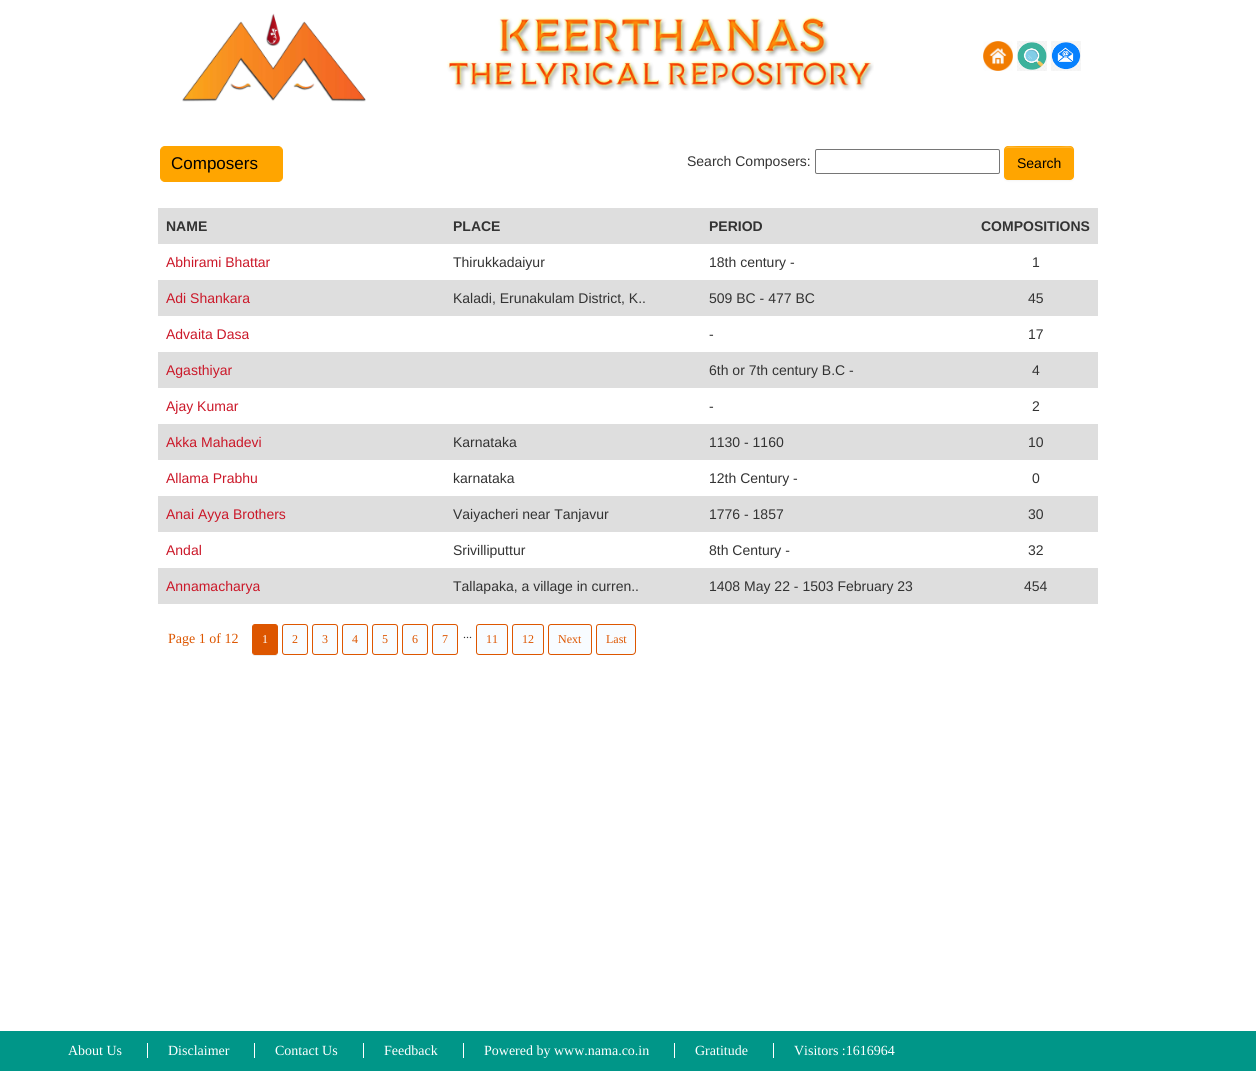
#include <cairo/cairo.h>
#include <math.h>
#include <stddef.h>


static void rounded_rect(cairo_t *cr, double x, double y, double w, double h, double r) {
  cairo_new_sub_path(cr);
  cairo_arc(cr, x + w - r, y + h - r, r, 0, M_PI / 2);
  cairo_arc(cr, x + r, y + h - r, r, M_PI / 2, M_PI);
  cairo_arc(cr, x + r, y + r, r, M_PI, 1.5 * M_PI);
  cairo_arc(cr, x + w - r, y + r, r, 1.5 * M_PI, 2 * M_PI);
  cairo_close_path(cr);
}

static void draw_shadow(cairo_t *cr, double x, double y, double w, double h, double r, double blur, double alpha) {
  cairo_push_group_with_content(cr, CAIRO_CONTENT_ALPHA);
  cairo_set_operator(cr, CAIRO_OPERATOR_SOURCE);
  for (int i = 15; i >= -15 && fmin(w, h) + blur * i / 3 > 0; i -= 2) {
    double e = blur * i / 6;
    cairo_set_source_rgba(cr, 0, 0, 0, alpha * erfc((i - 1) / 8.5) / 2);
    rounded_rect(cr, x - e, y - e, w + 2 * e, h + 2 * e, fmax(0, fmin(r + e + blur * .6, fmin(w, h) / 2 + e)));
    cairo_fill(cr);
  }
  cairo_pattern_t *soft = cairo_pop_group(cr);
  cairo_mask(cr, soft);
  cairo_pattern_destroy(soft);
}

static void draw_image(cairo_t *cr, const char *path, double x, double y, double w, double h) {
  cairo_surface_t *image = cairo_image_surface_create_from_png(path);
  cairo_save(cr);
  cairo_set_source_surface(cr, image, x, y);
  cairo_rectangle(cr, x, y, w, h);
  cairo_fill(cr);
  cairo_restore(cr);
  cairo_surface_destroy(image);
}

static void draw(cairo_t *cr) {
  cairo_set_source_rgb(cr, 1, 1, 1);
  cairo_paint(cr);
  draw_image(cr, "images/1.png", 182, 13, 184, 89);
  draw_image(cr, "images/2.png", 447, 16, 427, 75);
  draw_image(cr, "images/3.png", 983, 41, 30, 30);
  draw_image(cr, "images/4.png", 1017, 41, 30, 30);
  draw_image(cr, "images/5.png", 1051, 41, 30, 30);
  cairo_set_source_rgb(cr, 1, 165 / 255.0, 0);
  rounded_rect(cr, 160.5, 146.5, 122, 35, 4.5);
  cairo_fill_preserve(cr);
  cairo_set_line_width(cr, 1);
  cairo_stroke(cr);
  rounded_rect(cr, 815.5, 149.5, 184, 24, 1.5);
  cairo_set_source_rgb(cr, 118 / 255.0, 118 / 255.0, 118 / 255.0);
  cairo_stroke(cr);
  cairo_set_source_rgb(cr, 0, 0, 0);
  draw_shadow(cr, 1004, 147, 70, 34, 4, 1, 0.05);
  cairo_set_source_rgb(cr, 1, 165 / 255.0, 0);
  rounded_rect(cr, 1004, 146, 70, 34, 4);
  cairo_fill(cr);
  cairo_set_source_rgb(cr, 1, 183 / 255.0, 51 / 255.0);
  cairo_new_path(cr);
  cairo_move_to(cr, 1008, 148);
  cairo_line_to(cr, 1070, 148);
  cairo_curve_to(cr, 1072, 148, 1073, 149, 1073, 151);
  cairo_curve_to(cr, 1073, 144, 1064, 147, 1060, 147);
  cairo_line_to(cr, 1018, 147);
  cairo_curve_to(cr, 1014, 147, 1005, 144, 1005, 151);
  cairo_curve_to(cr, 1005, 149, 1006, 148, 1008, 148);
  cairo_close_path(cr);
  cairo_fill(cr);
  cairo_set_source_rgb(cr, 222 / 255.0, 222 / 255.0, 222 / 255.0);
  cairo_rectangle(cr, 158, 208, 940, 36);
  cairo_fill(cr);
  cairo_rectangle(cr, 158, 280, 940, 36);
  cairo_fill(cr);
  cairo_rectangle(cr, 158, 352, 940, 36);
  cairo_fill(cr);
  cairo_rectangle(cr, 158, 424, 940, 36);
  cairo_fill(cr);
  cairo_rectangle(cr, 158, 496, 940, 36);
  cairo_fill(cr);
  cairo_rectangle(cr, 158, 568, 940, 36);
  cairo_fill(cr);
  cairo_set_source_rgb(cr, 237 / 255.0, 237 / 255.0, 237 / 255.0);
  cairo_new_path(cr);
  cairo_move_to(cr, 252, 652);
  cairo_curve_to(cr, 252, 656.5, 254.5, 656, 258.5, 656);
  cairo_line_to(cr, 271.5, 656);
  cairo_curve_to(cr, 275.5, 656, 278, 656.5, 278, 652);
  cairo_curve_to(cr, 278, 653.5, 276.5, 655, 275, 655);
  cairo_line_to(cr, 255, 655);
  cairo_curve_to(cr, 253.5, 655, 252, 653.5, 252, 652);
  cairo_close_path(cr);
  cairo_fill(cr);
  cairo_set_source_rgb(cr, 221 / 255.0, 86 / 255.0, 0);
  rounded_rect(cr, 252.5, 624.5, 25, 30, 2.5);
  cairo_fill_preserve(cr);
  cairo_stroke(cr);
  cairo_set_source_rgb(cr, 248 / 255.0, 252 / 255.0, 1);
  rounded_rect(cr, 282.5, 624.5, 25, 30, 2.5);
  cairo_fill_preserve(cr);
  cairo_set_source_rgb(cr, 221 / 255.0, 86 / 255.0, 0);
  cairo_stroke(cr);
  cairo_set_source_rgb(cr, 248 / 255.0, 252 / 255.0, 1);
  rounded_rect(cr, 312.5, 624.5, 25, 30, 2.5);
  cairo_fill_preserve(cr);
  cairo_set_source_rgb(cr, 221 / 255.0, 86 / 255.0, 0);
  cairo_stroke(cr);
  cairo_set_source_rgb(cr, 248 / 255.0, 252 / 255.0, 1);
  rounded_rect(cr, 342.5, 624.5, 25, 30, 2.5);
  cairo_fill_preserve(cr);
  cairo_set_source_rgb(cr, 221 / 255.0, 86 / 255.0, 0);
  cairo_stroke(cr);
  cairo_set_source_rgb(cr, 248 / 255.0, 252 / 255.0, 1);
  rounded_rect(cr, 372.5, 624.5, 25, 30, 2.5);
  cairo_fill_preserve(cr);
  cairo_set_source_rgb(cr, 221 / 255.0, 86 / 255.0, 0);
  cairo_stroke(cr);
  cairo_set_source_rgb(cr, 248 / 255.0, 252 / 255.0, 1);
  rounded_rect(cr, 402.5, 624.5, 25, 30, 2.5);
  cairo_fill_preserve(cr);
  cairo_set_source_rgb(cr, 221 / 255.0, 86 / 255.0, 0);
  cairo_stroke(cr);
  cairo_set_source_rgb(cr, 248 / 255.0, 252 / 255.0, 1);
  rounded_rect(cr, 432.5, 624.5, 25, 30, 2.5);
  cairo_fill_preserve(cr);
  cairo_set_source_rgb(cr, 221 / 255.0, 86 / 255.0, 0);
  cairo_stroke(cr);
  cairo_set_source_rgb(cr, 248 / 255.0, 252 / 255.0, 1);
  rounded_rect(cr, 476.5, 624.5, 31, 30, 2.5);
  cairo_fill_preserve(cr);
  cairo_set_source_rgb(cr, 221 / 255.0, 86 / 255.0, 0);
  cairo_stroke(cr);
  cairo_set_source_rgb(cr, 248 / 255.0, 252 / 255.0, 1);
  rounded_rect(cr, 512.5, 624.5, 31, 30, 2.5);
  cairo_fill_preserve(cr);
  cairo_set_source_rgb(cr, 221 / 255.0, 86 / 255.0, 0);
  cairo_stroke(cr);
  cairo_set_source_rgb(cr, 248 / 255.0, 252 / 255.0, 1);
  rounded_rect(cr, 548.5, 624.5, 43, 30, 2.5);
  cairo_fill_preserve(cr);
  cairo_set_source_rgb(cr, 221 / 255.0, 86 / 255.0, 0);
  cairo_stroke(cr);
  cairo_set_source_rgb(cr, 248 / 255.0, 252 / 255.0, 1);
  cairo_new_path(cr);
  cairo_move_to(cr, 599, 624.5);
  cairo_line_to(cr, 632, 624.5);
  cairo_curve_to(cr, 634, 624.5, 635.5, 626, 635.5, 628);
  cairo_line_to(cr, 635.5, 651);
  cairo_curve_to(cr, 635.5, 653, 634, 654.5, 632, 654.5);
  cairo_line_to(cr, 599, 654.5);
  cairo_curve_to(cr, 597.5, 654.5, 596.5, 653.5, 596.5, 652);
  cairo_line_to(cr, 596.5, 627);
  cairo_curve_to(cr, 596.5, 625.5, 597.5, 624.5, 599, 624.5);
  cairo_close_path(cr);
  cairo_fill_preserve(cr);
  cairo_set_source_rgb(cr, 221 / 255.0, 86 / 255.0, 0);
  cairo_stroke(cr);
  cairo_set_source_rgb(cr, 0, 150 / 255.0, 136 / 255.0);
  cairo_rectangle(cr, 0, 1031, 1256, 40);
  cairo_fill(cr);
  cairo_set_source_rgb(cr, 1, 1, 1);
  cairo_rectangle(cr, 147, 1043, 1, 15);
  cairo_fill(cr);
  cairo_rectangle(cr, 254, 1043, 1, 15);
  cairo_fill(cr);
  cairo_rectangle(cr, 363, 1043, 1, 15);
  cairo_fill(cr);
  cairo_rectangle(cr, 463, 1043, 1, 15);
  cairo_fill(cr);
  cairo_rectangle(cr, 674, 1043, 1, 15);
  cairo_fill(cr);
  cairo_rectangle(cr, 773, 1043, 1, 15);
  cairo_fill(cr);
  cairo_select_font_face(cr, "Liberation Sans", CAIRO_FONT_SLANT_NORMAL, CAIRO_FONT_WEIGHT_NORMAL);
  cairo_set_font_size(cr, 17);
  cairo_set_source_rgb(cr, 0, 0, 0);
  cairo_move_to(cr, 171, 169);
  cairo_show_text(cr, "Composers");
  cairo_set_font_size(cr, 14);
  cairo_set_source_rgb(cr, 51 / 255.0, 51 / 255.0, 51 / 255.0);
  cairo_move_to(cr, 687, 166);
  cairo_show_text(cr, "Search Composers:");
  cairo_set_source_rgb(cr, 0, 0, 0);
  cairo_move_to(cr, 1017, 168);
  cairo_show_text(cr, "Search");
  cairo_select_font_face(cr, "Liberation Sans", CAIRO_FONT_SLANT_NORMAL, CAIRO_FONT_WEIGHT_BOLD);
  cairo_set_source_rgb(cr, 51 / 255.0, 51 / 255.0, 51 / 255.0);
  cairo_move_to(cr, 166, 231);
  cairo_show_text(cr, "NAME");
  cairo_move_to(cr, 453, 231);
  cairo_show_text(cr, "PLACE");
  cairo_move_to(cr, 709, 231);
  cairo_show_text(cr, "PERIOD");
  cairo_move_to(cr, 981, 231);
  cairo_show_text(cr, "COMPOSITIONS");
  cairo_select_font_face(cr, "Liberation Sans", CAIRO_FONT_SLANT_NORMAL, CAIRO_FONT_WEIGHT_NORMAL);
  cairo_set_source_rgb(cr, 203 / 255.0, 24 / 255.0, 41 / 255.0);
  cairo_move_to(cr, 166, 267);
  cairo_show_text(cr, "Abhirami Bhattar");
  cairo_set_source_rgb(cr, 51 / 255.0, 51 / 255.0, 51 / 255.0);
  cairo_move_to(cr, 453, 267);
  cairo_show_text(cr, "Thirukkadaiyur");
  cairo_move_to(cr, 709, 267);
  cairo_show_text(cr, "18th century -");
  cairo_move_to(cr, 1032, 267);
  cairo_show_text(cr, "1");
  cairo_set_source_rgb(cr, 203 / 255.0, 24 / 255.0, 41 / 255.0);
  cairo_move_to(cr, 166, 303);
  cairo_show_text(cr, "Adi Shankara");
  cairo_set_source_rgb(cr, 51 / 255.0, 51 / 255.0, 51 / 255.0);
  cairo_move_to(cr, 453, 303);
  cairo_show_text(cr, "Kaladi, Erunakulam District, K..");
  cairo_move_to(cr, 709, 303);
  cairo_show_text(cr, "509 BC - 477 BC");
  cairo_move_to(cr, 1028, 303);
  cairo_show_text(cr, "45");
  cairo_set_source_rgb(cr, 203 / 255.0, 24 / 255.0, 41 / 255.0);
  cairo_move_to(cr, 166, 339);
  cairo_show_text(cr, "Advaita Dasa");
  cairo_set_source_rgb(cr, 51 / 255.0, 51 / 255.0, 51 / 255.0);
  cairo_move_to(cr, 709, 339);
  cairo_show_text(cr, "-");
  cairo_move_to(cr, 1028, 339);
  cairo_show_text(cr, "17");
  cairo_set_source_rgb(cr, 203 / 255.0, 24 / 255.0, 41 / 255.0);
  cairo_move_to(cr, 166, 375);
  cairo_show_text(cr, "Agasthiyar");
  cairo_set_source_rgb(cr, 51 / 255.0, 51 / 255.0, 51 / 255.0);
  cairo_move_to(cr, 709, 375);
  cairo_show_text(cr, "6th or 7th century B.C -");
  cairo_move_to(cr, 1032, 375);
  cairo_show_text(cr, "4");
  cairo_set_source_rgb(cr, 203 / 255.0, 24 / 255.0, 41 / 255.0);
  cairo_move_to(cr, 166, 411);
  cairo_show_text(cr, "Ajay Kumar");
  cairo_set_source_rgb(cr, 51 / 255.0, 51 / 255.0, 51 / 255.0);
  cairo_move_to(cr, 709, 411);
  cairo_show_text(cr, "-");
  cairo_move_to(cr, 1032, 411);
  cairo_show_text(cr, "2");
  cairo_set_source_rgb(cr, 203 / 255.0, 24 / 255.0, 41 / 255.0);
  cairo_move_to(cr, 166, 447);
  cairo_show_text(cr, "Akka Mahadevi");
  cairo_set_source_rgb(cr, 51 / 255.0, 51 / 255.0, 51 / 255.0);
  cairo_move_to(cr, 453, 447);
  cairo_show_text(cr, "Karnataka");
  cairo_move_to(cr, 709, 447);
  cairo_show_text(cr, "1130 - 1160");
  cairo_move_to(cr, 1028, 447);
  cairo_show_text(cr, "10");
  cairo_set_source_rgb(cr, 203 / 255.0, 24 / 255.0, 41 / 255.0);
  cairo_move_to(cr, 166, 483);
  cairo_show_text(cr, "Allama Prabhu");
  cairo_set_source_rgb(cr, 51 / 255.0, 51 / 255.0, 51 / 255.0);
  cairo_move_to(cr, 453, 483);
  cairo_show_text(cr, "karnataka");
  cairo_move_to(cr, 709, 483);
  cairo_show_text(cr, "12th Century -");
  cairo_move_to(cr, 1032, 483);
  cairo_show_text(cr, "0");
  cairo_set_source_rgb(cr, 203 / 255.0, 24 / 255.0, 41 / 255.0);
  cairo_move_to(cr, 166, 519);
  cairo_show_text(cr, "Anai Ayya Brothers");
  cairo_set_source_rgb(cr, 51 / 255.0, 51 / 255.0, 51 / 255.0);
  cairo_move_to(cr, 453, 519);
  cairo_show_text(cr, "Vaiyacheri near Tanjavur");
  cairo_move_to(cr, 709, 519);
  cairo_show_text(cr, "1776 - 1857");
  cairo_move_to(cr, 1028, 519);
  cairo_show_text(cr, "30");
  cairo_set_source_rgb(cr, 203 / 255.0, 24 / 255.0, 41 / 255.0);
  cairo_move_to(cr, 166, 555);
  cairo_show_text(cr, "Andal");
  cairo_set_source_rgb(cr, 51 / 255.0, 51 / 255.0, 51 / 255.0);
  cairo_move_to(cr, 453, 555);
  cairo_show_text(cr, "Srivilliputtur");
  cairo_move_to(cr, 709, 555);
  cairo_show_text(cr, "8th Century -");
  cairo_move_to(cr, 1028, 555);
  cairo_show_text(cr, "32");
  cairo_set_source_rgb(cr, 203 / 255.0, 24 / 255.0, 41 / 255.0);
  cairo_move_to(cr, 166, 591);
  cairo_show_text(cr, "Annamacharya");
  cairo_set_source_rgb(cr, 51 / 255.0, 51 / 255.0, 51 / 255.0);
  cairo_move_to(cr, 453, 591);
  cairo_show_text(cr, "Tallapaka, a village in curren..");
  cairo_move_to(cr, 709, 591);
  cairo_show_text(cr, "1408 May 22 - 1503 February 23");
  cairo_move_to(cr, 1024, 591);
  cairo_show_text(cr, "454");
  cairo_select_font_face(cr, "Liberation Serif", CAIRO_FONT_SLANT_NORMAL, CAIRO_FONT_WEIGHT_NORMAL);
  cairo_set_source_rgb(cr, 221 / 255.0, 86 / 255.0, 0);
  cairo_move_to(cr, 168, 643);
  cairo_show_text(cr, "Page 1 of 12");
  cairo_set_font_size(cr, 12);
  cairo_set_source_rgb(cr, 1, 1, 1);
  cairo_move_to(cr, 262, 643);
  cairo_show_text(cr, "1");
  cairo_set_source_rgb(cr, 221 / 255.0, 86 / 255.0, 0);
  cairo_move_to(cr, 292, 643);
  cairo_show_text(cr, "2");
  cairo_move_to(cr, 322, 643);
  cairo_show_text(cr, "3");
  cairo_move_to(cr, 352, 643);
  cairo_show_text(cr, "4");
  cairo_move_to(cr, 382, 643);
  cairo_show_text(cr, "5");
  cairo_move_to(cr, 412, 643);
  cairo_show_text(cr, "6");
  cairo_move_to(cr, 442, 643);
  cairo_show_text(cr, "7");
  cairo_set_source_rgb(cr, 51 / 255.0, 51 / 255.0, 51 / 255.0);
  cairo_move_to(cr, 463, 638);
  cairo_show_text(cr, "...");
  cairo_set_source_rgb(cr, 221 / 255.0, 86 / 255.0, 0);
  cairo_move_to(cr, 486, 643);
  cairo_show_text(cr, "11");
  cairo_move_to(cr, 522, 643);
  cairo_show_text(cr, "12");
  cairo_move_to(cr, 558, 643);
  cairo_show_text(cr, "Next");
  cairo_move_to(cr, 606, 643);
  cairo_show_text(cr, "Last");
  cairo_set_font_size(cr, 14);
  cairo_set_source_rgb(cr, 1, 1, 1);
  cairo_move_to(cr, 68, 1055);
  cairo_show_text(cr, "About Us");
  cairo_move_to(cr, 168, 1055);
  cairo_show_text(cr, "Disclaimer");
  cairo_move_to(cr, 275, 1055);
  cairo_show_text(cr, "Contact Us");
  cairo_move_to(cr, 384, 1055);
  cairo_show_text(cr, "Feedback");
  cairo_move_to(cr, 484, 1055);
  cairo_show_text(cr, "Powered by www.nama.co.in");
  cairo_move_to(cr, 695, 1055);
  cairo_show_text(cr, "Gratitude");
  cairo_move_to(cr, 794, 1055);
  cairo_show_text(cr, "Visitors :1616964");
}

int main(void) {
  cairo_surface_t *surface = cairo_image_surface_create(CAIRO_FORMAT_RGB24, 1256, 1071);
  cairo_t *cr = cairo_create(surface);
  cairo_font_options_t *options = cairo_font_options_create();
  cairo_font_options_set_hint_metrics(options, CAIRO_HINT_METRICS_OFF);
  cairo_font_options_set_hint_style(options, CAIRO_HINT_STYLE_NONE);
  cairo_set_font_options(cr, options);
  cairo_set_miter_limit(cr, 4);
  draw(cr);
  cairo_surface_write_to_png(surface, "out.png");
  cairo_font_options_destroy(options);
  cairo_destroy(cr);
  cairo_surface_destroy(surface);
  return 0;
}
